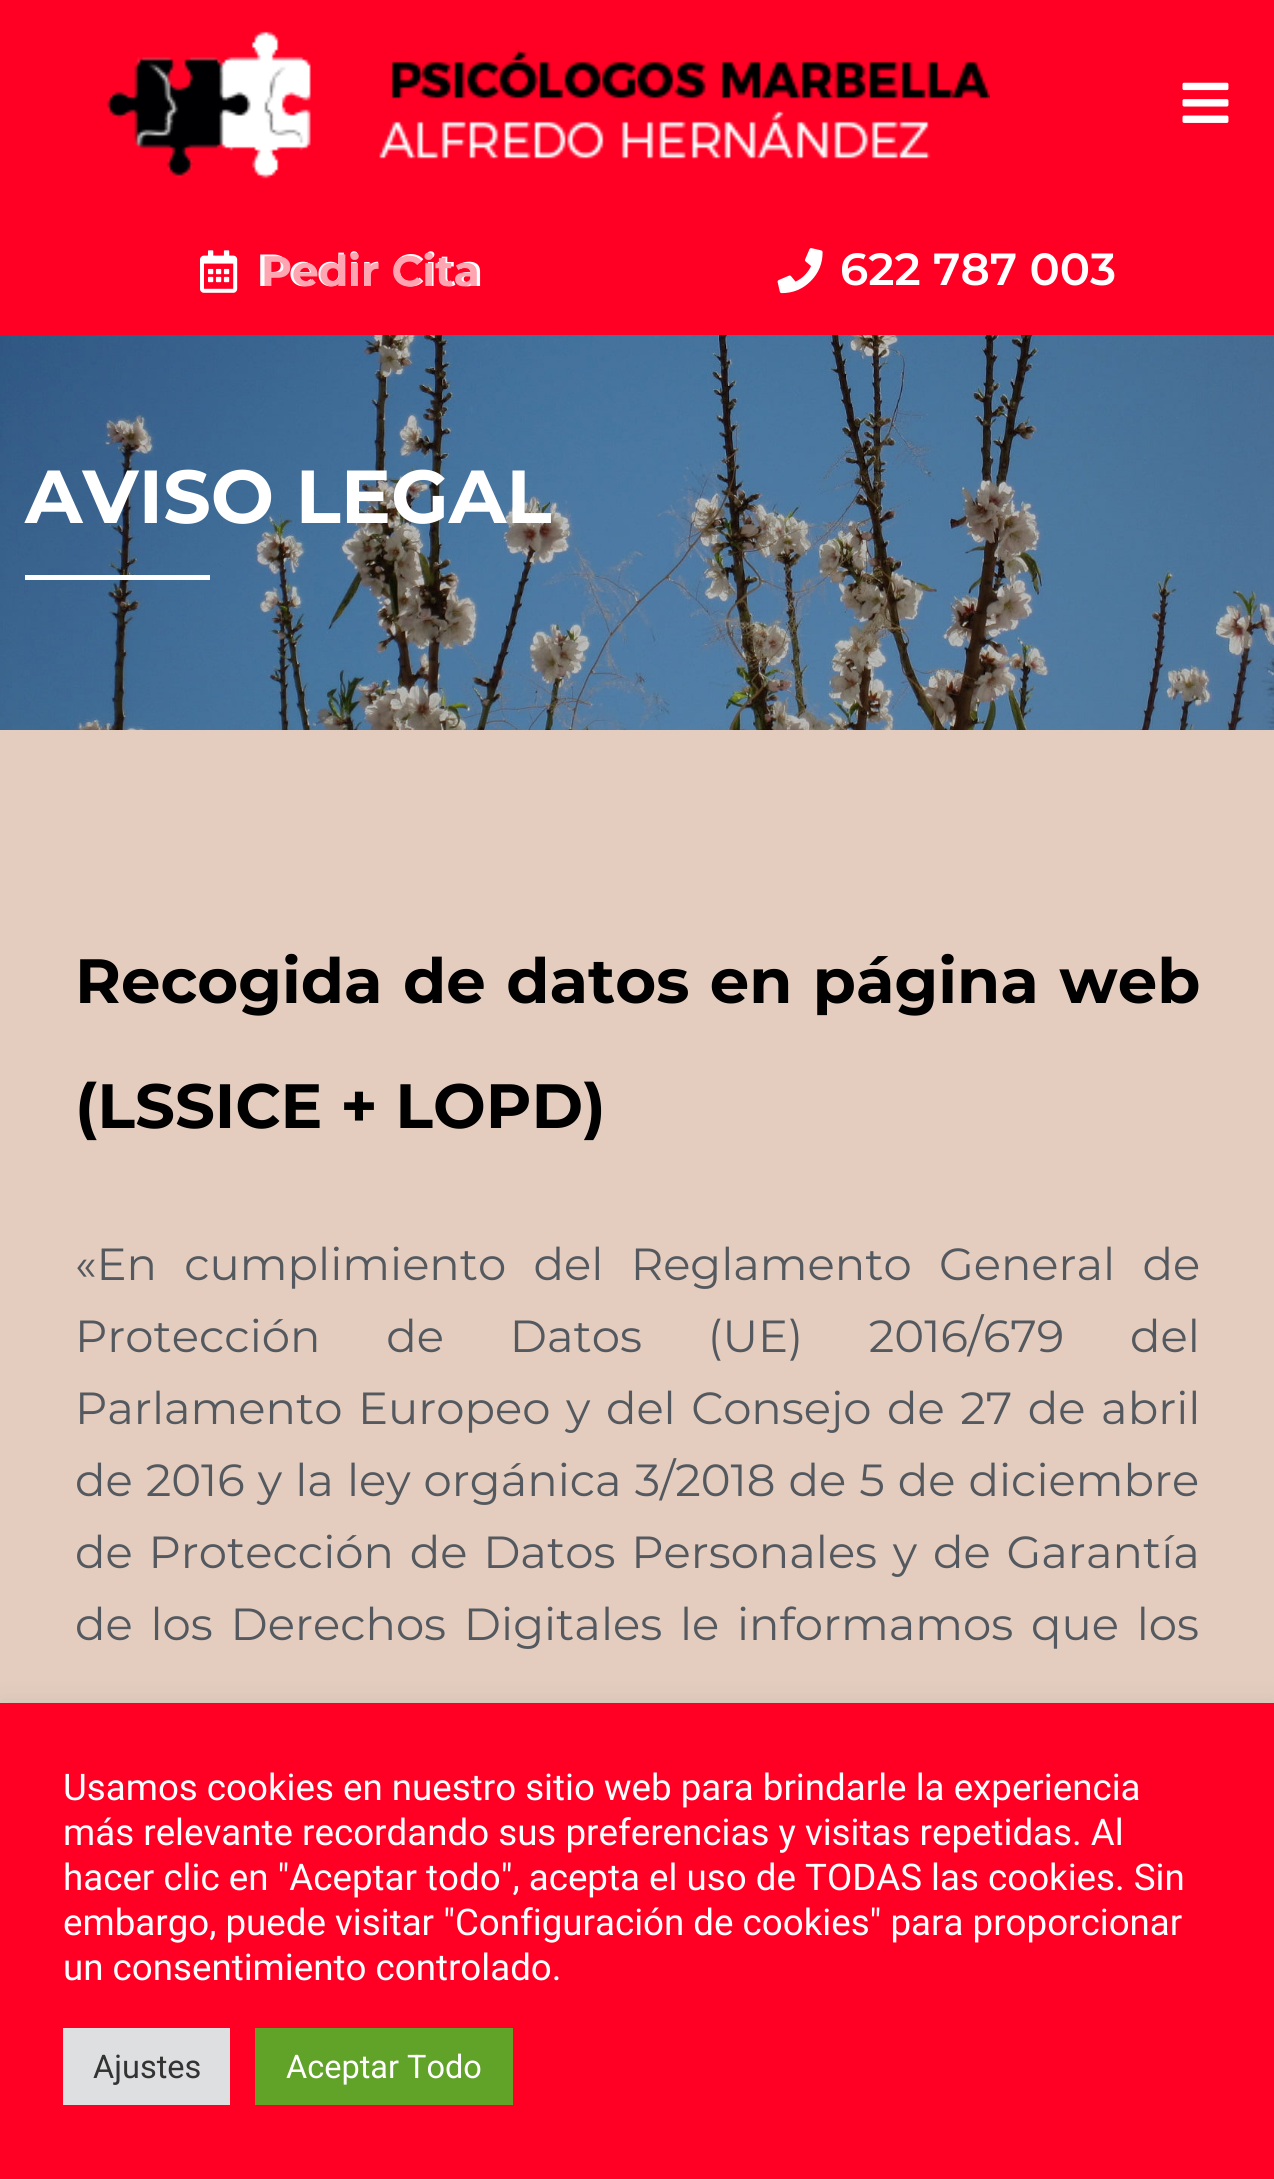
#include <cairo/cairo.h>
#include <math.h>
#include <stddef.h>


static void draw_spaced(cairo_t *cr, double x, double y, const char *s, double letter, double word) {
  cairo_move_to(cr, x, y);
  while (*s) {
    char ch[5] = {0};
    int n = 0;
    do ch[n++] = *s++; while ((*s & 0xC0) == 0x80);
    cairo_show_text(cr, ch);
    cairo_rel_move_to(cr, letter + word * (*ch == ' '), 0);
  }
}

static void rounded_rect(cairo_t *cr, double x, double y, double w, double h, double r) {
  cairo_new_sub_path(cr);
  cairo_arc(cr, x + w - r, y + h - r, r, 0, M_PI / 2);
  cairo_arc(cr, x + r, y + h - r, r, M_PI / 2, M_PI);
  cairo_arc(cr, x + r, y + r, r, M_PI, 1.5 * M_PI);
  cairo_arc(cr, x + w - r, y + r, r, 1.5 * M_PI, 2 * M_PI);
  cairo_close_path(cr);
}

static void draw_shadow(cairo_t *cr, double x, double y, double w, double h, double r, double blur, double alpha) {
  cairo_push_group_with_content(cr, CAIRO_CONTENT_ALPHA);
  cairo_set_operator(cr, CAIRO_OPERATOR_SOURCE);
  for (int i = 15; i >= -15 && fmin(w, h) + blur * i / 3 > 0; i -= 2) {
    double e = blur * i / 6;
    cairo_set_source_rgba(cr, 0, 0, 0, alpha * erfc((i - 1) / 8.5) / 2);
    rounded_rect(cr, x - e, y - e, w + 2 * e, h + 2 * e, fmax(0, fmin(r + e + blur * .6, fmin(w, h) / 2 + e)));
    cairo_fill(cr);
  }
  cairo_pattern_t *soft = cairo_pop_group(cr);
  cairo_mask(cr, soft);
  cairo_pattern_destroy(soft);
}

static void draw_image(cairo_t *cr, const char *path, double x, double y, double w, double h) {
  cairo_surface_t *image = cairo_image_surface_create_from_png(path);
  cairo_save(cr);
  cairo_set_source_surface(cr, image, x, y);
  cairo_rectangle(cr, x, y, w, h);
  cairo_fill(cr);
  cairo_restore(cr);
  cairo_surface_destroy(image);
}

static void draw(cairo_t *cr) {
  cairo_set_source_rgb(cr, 1, 0, 36 / 255.0);
  cairo_paint(cr);
  draw_image(cr, "images/1.png", 106, 31, 884, 148);
  draw_image(cr, "images/2.png", 1182, 82, 47, 41);
  draw_image(cr, "images/3.png", 200, 250, 38, 43);
  draw_image(cr, "images/4.png", 777, 248, 46, 46);
  draw_image(cr, "images/5.png", 0, 335, 1274, 395);
  cairo_set_source_rgb(cr, 1, 1, 1);
  cairo_rectangle(cr, 25, 575, 185, 5);
  cairo_fill(cr);
  cairo_set_source_rgb(cr, 228 / 255.0, 205 / 255.0, 190 / 255.0);
  cairo_rectangle(cr, 0, 730, 1274, 973);
  cairo_fill(cr);
  cairo_set_source_rgb(cr, 172 / 255.0, 171 / 255.0, 171 / 255.0);
  draw_shadow(cr, 0, 1700, 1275, 478, 0, 12.5, 0.3);
  cairo_set_source_rgb(cr, 1, 0, 36 / 255.0);
  cairo_rectangle(cr, 0, 1703, 1274, 476);
  cairo_fill(cr);
  cairo_set_source_rgb(cr, 222 / 255.0, 223 / 255.0, 224 / 255.0);
  cairo_rectangle(cr, 63, 2028, 167, 77);
  cairo_fill(cr);
  cairo_set_source_rgb(cr, 97 / 255.0, 162 / 255.0, 41 / 255.0);
  cairo_rectangle(cr, 255, 2028, 258, 77);
  cairo_fill(cr);
  cairo_select_font_face(cr, "Montserrat SemiBold", CAIRO_FONT_SLANT_NORMAL, CAIRO_FONT_WEIGHT_NORMAL);
  cairo_set_font_size(cr, 45);
  cairo_set_source_rgb(cr, 1, 1, 1);
  cairo_move_to(cr, 256, 286);
  cairo_show_text(cr, "Pedir Cita");
  cairo_select_font_face(cr, "Montserrat", CAIRO_FONT_SLANT_NORMAL, CAIRO_FONT_WEIGHT_BOLD);
  cairo_set_font_size(cr, 42.5);
  cairo_set_source_rgb(cr, 1, 164 / 255.0, 177 / 255.0);
  cairo_move_to(cr, 261, 286);
  cairo_show_text(cr, "Pedir Cita");
  cairo_select_font_face(cr, "Montserrat SemiBold", CAIRO_FONT_SLANT_NORMAL, CAIRO_FONT_WEIGHT_NORMAL);
  cairo_set_font_size(cr, 45);
  cairo_set_source_rgb(cr, 1, 1, 1);
  cairo_move_to(cr, 840, 285);
  cairo_show_text(cr, "622 787 003");
  cairo_select_font_face(cr, "Montserrat", CAIRO_FONT_SLANT_NORMAL, CAIRO_FONT_WEIGHT_BOLD);
  cairo_set_font_size(cr, 75);
  cairo_move_to(cr, 25, 523);
  cairo_show_text(cr, "AVISO LEGAL");
  cairo_set_font_size(cr, 62.5);
  cairo_set_source_rgb(cr, 0, 0, 0);
  draw_spaced(cr, 75, 1003, "Recogida de datos en página web", 0, 2.75);
  cairo_move_to(cr, 75, 1128);
  cairo_show_text(cr, "(LSSICE + LOPD)");
  cairo_select_font_face(cr, "Montserrat", CAIRO_FONT_SLANT_NORMAL, CAIRO_FONT_WEIGHT_NORMAL);
  cairo_set_font_size(cr, 45);
  cairo_set_source_rgb(cr, 84 / 255.0, 89 / 255.0, 95 / 255.0);
  draw_spaced(cr, 75, 1280, "«En cumplimiento del Reglamento General de", 0, 15.5);
  draw_spaced(cr, 75, 1352, "Protección de Datos (UE) 2016/679 del", 0, 54);
  draw_spaced(cr, 75, 1424, "Parlamento Europeo y del Consejo de 27 de abril", 0, 3.75);
  draw_spaced(cr, 75, 1496, "de 2016 y la ley orgánica 3/2018 de 5 de diciembre", 0, 1.25);
  draw_spaced(cr, 75, 1568, "de Protección de Datos Personales y de Garantía", 0, 4);
  draw_spaced(cr, 75, 1640, "de los Derechos Digitales le informamos que los", 0, 6);
  cairo_select_font_face(cr, "Roboto", CAIRO_FONT_SLANT_NORMAL, CAIRO_FONT_WEIGHT_NORMAL);
  cairo_set_font_size(cr, 36.7);
  cairo_set_source_rgb(cr, 1, 1, 1);
  cairo_move_to(cr, 63, 1800);
  cairo_show_text(cr, "Usamos cookies en nuestro sitio web para brindarle la experiencia");
  cairo_move_to(cr, 63, 1845);
  cairo_show_text(cr, "más relevante recordando sus preferencias y visitas repetidas. Al");
  cairo_move_to(cr, 63, 1890);
  cairo_show_text(cr, "hacer clic en \"Aceptar todo\", acepta el uso de TODAS las cookies. Sin");
  cairo_move_to(cr, 63, 1935);
  cairo_show_text(cr, "embargo, puede visitar \"Configuración de cookies\" para proporcionar");
  cairo_move_to(cr, 63, 1980);
  cairo_show_text(cr, "un consentimiento controlado.");
  cairo_set_font_size(cr, 32.5);
  cairo_set_source_rgb(cr, 51 / 255.0, 51 / 255.0, 51 / 255.0);
  cairo_move_to(cr, 93, 2078);
  cairo_show_text(cr, "Ajustes");
  cairo_set_source_rgb(cr, 1, 1, 1);
  cairo_move_to(cr, 286, 2078);
  cairo_show_text(cr, "Aceptar Todo");
}

int main(void) {
  cairo_surface_t *surface = cairo_image_surface_create(CAIRO_FORMAT_RGB24, 1274, 2179);
  cairo_t *cr = cairo_create(surface);
  cairo_font_options_t *options = cairo_font_options_create();
  cairo_font_options_set_hint_metrics(options, CAIRO_HINT_METRICS_OFF);
  cairo_font_options_set_hint_style(options, CAIRO_HINT_STYLE_NONE);
  cairo_set_font_options(cr, options);
  cairo_set_miter_limit(cr, 4);
  draw(cr);
  cairo_surface_write_to_png(surface, "out.png");
  cairo_font_options_destroy(options);
  cairo_destroy(cr);
  cairo_surface_destroy(surface);
  return 0;
}
